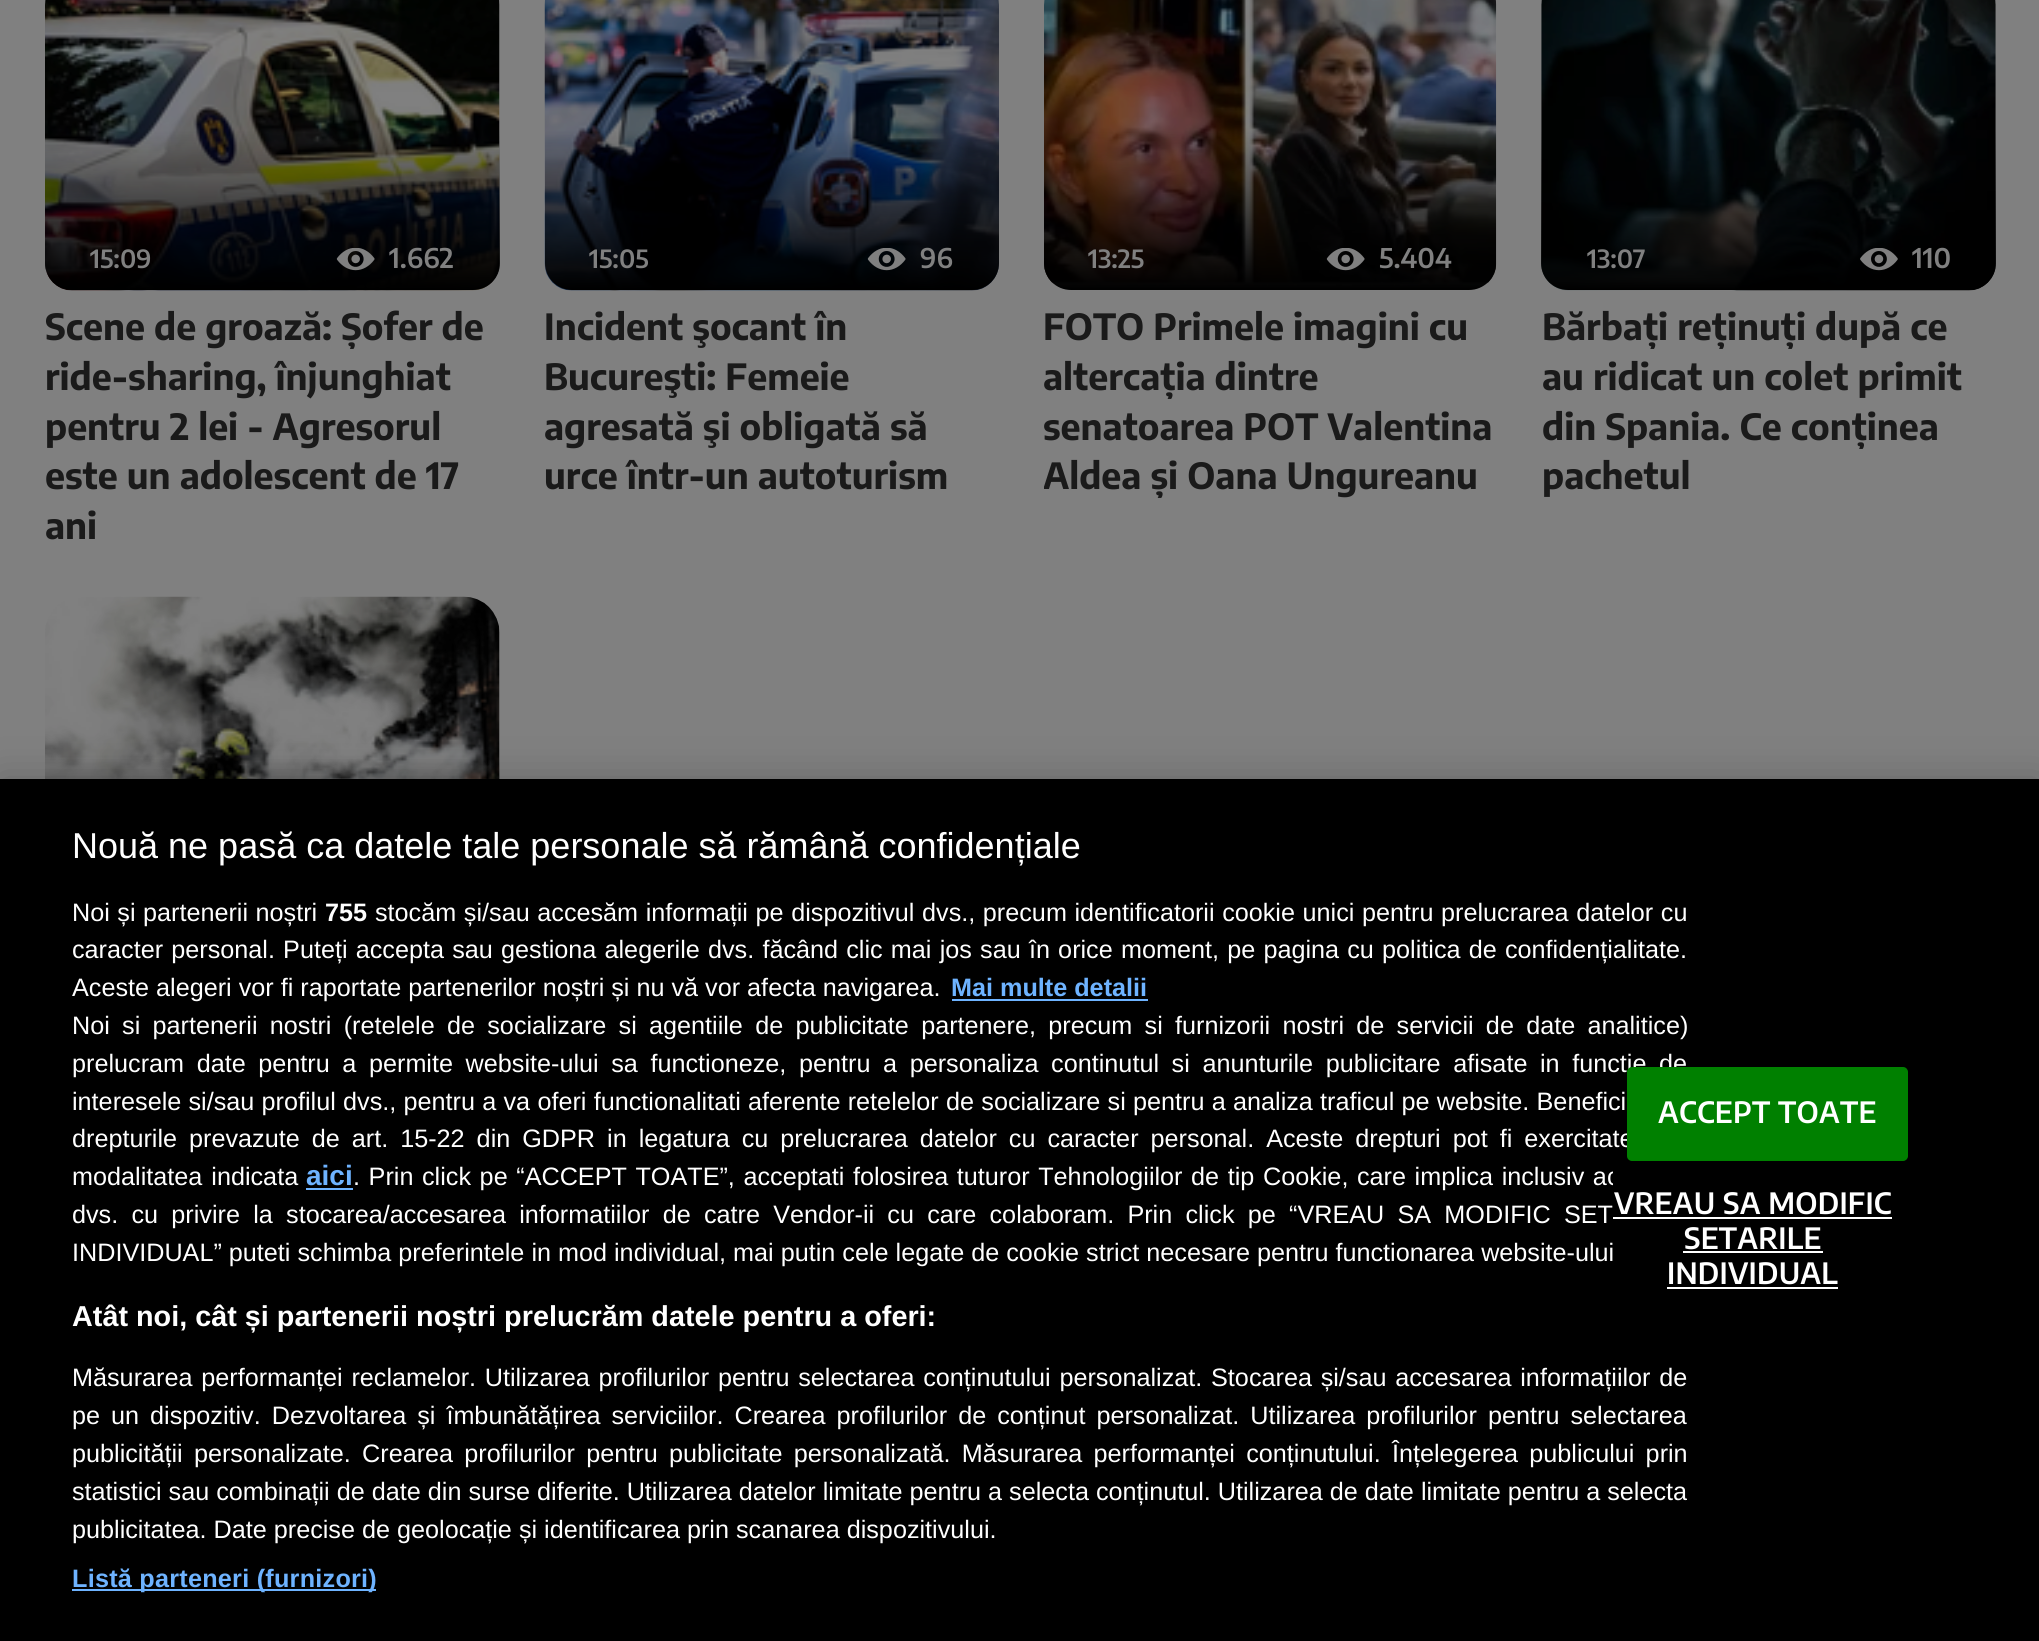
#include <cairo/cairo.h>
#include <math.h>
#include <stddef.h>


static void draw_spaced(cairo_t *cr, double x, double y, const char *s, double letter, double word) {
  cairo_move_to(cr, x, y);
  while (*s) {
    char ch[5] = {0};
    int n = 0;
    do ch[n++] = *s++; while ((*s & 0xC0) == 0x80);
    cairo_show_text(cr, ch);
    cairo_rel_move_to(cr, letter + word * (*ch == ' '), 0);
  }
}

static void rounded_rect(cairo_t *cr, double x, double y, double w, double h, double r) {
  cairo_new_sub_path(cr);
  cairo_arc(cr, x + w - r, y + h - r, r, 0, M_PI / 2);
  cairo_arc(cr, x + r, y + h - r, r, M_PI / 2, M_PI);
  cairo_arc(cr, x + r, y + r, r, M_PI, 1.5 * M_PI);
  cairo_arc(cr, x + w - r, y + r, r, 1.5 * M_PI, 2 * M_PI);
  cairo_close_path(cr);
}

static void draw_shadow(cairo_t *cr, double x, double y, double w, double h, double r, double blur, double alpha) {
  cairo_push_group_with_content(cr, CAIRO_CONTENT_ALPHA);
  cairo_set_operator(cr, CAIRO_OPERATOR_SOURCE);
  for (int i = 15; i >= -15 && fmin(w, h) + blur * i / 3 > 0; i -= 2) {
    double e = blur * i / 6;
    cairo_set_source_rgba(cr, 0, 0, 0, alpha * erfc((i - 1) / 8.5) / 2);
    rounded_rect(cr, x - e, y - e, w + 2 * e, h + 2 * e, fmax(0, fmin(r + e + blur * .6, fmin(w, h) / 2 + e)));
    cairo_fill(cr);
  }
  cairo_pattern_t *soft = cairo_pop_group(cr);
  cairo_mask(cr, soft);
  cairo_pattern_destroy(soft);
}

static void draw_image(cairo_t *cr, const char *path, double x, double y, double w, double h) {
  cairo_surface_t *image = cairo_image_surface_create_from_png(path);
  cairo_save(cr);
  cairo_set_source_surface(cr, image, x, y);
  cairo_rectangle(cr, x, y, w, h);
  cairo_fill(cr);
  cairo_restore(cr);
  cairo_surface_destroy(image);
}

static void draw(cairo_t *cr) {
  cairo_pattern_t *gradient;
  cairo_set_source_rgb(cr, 128 / 255.0, 128 / 255.0, 128 / 255.0);
  cairo_paint(cr);
  draw_image(cr, "images/1.png", 45, 0, 455, 291);
  gradient = cairo_pattern_create_linear(272, 130, 272, 290);
  cairo_pattern_add_color_stop_rgba(gradient, 0, 0, 0, 0, 0);
  cairo_pattern_add_color_stop_rgba(gradient, 1, 0, 0, 0, 1);
  cairo_set_source(cr, gradient);
  cairo_pattern_destroy(gradient);
  cairo_new_path(cr);
  cairo_move_to(cr, 45, 131);
  cairo_line_to(cr, 500, 131);
  cairo_line_to(cr, 500, 263);
  cairo_curve_to(cr, 500, 278, 488, 290, 473, 290);
  cairo_line_to(cr, 72, 290);
  cairo_curve_to(cr, 57, 290, 45, 278, 45, 263);
  cairo_close_path(cr);
  cairo_fill(cr);
  draw_image(cr, "images/2.png", 336, 248, 39, 23);
  draw_image(cr, "images/3.png", 544, 0, 455, 291);
  gradient = cairo_pattern_create_linear(772, 130, 772, 290);
  cairo_pattern_add_color_stop_rgba(gradient, 0, 0, 0, 0, 0);
  cairo_pattern_add_color_stop_rgba(gradient, 1, 0, 0, 0, 1);
  cairo_set_source(cr, gradient);
  cairo_pattern_destroy(gradient);
  cairo_new_path(cr);
  cairo_move_to(cr, 545, 131);
  cairo_line_to(cr, 999, 131);
  cairo_line_to(cr, 999, 263);
  cairo_curve_to(cr, 999, 278, 987, 290, 972, 290);
  cairo_line_to(cr, 572, 290);
  cairo_curve_to(cr, 557, 290, 545, 278, 545, 263);
  cairo_close_path(cr);
  cairo_fill(cr);
  draw_image(cr, "images/4.png", 867, 248, 39, 23);
  draw_image(cr, "images/5.png", 1044, 0, 453, 288);
  gradient = cairo_pattern_create_linear(1270, 130, 1270, 290);
  cairo_pattern_add_color_stop_rgba(gradient, 0, 0, 0, 0, 0);
  cairo_pattern_add_color_stop_rgba(gradient, 1, 0, 0, 0, 1);
  cairo_set_source(cr, gradient);
  cairo_pattern_destroy(gradient);
  cairo_new_path(cr);
  cairo_move_to(cr, 1044, 131);
  cairo_line_to(cr, 1496, 131);
  cairo_line_to(cr, 1496, 263);
  cairo_curve_to(cr, 1496, 278, 1484, 290, 1469, 290);
  cairo_line_to(cr, 1071, 290);
  cairo_curve_to(cr, 1056, 290, 1044, 278, 1044, 263);
  cairo_close_path(cr);
  cairo_fill(cr);
  draw_image(cr, "images/6.png", 1326, 248, 39, 23);
  draw_image(cr, "images/7.png", 1541, 0, 455, 291);
  gradient = cairo_pattern_create_linear(1769, 130, 1769, 290);
  cairo_pattern_add_color_stop_rgba(gradient, 0, 0, 0, 0, 0);
  cairo_pattern_add_color_stop_rgba(gradient, 1, 0, 0, 0, 1);
  cairo_set_source(cr, gradient);
  cairo_pattern_destroy(gradient);
  cairo_new_path(cr);
  cairo_move_to(cr, 1541, 131);
  cairo_line_to(cr, 1996, 131);
  cairo_line_to(cr, 1996, 263);
  cairo_curve_to(cr, 1996, 278, 1984, 290, 1969, 290);
  cairo_line_to(cr, 1568, 290);
  cairo_curve_to(cr, 1553, 290, 1541, 278, 1541, 263);
  cairo_close_path(cr);
  cairo_fill(cr);
  draw_image(cr, "images/8.png", 1860, 248, 38, 23);
  draw_image(cr, "images/9.png", 45, 596, 455, 183);
  gradient = cairo_pattern_create_linear(272, 756, 272, 916);
  cairo_pattern_add_color_stop_rgba(gradient, 0, 0, 0, 0, 0);
  cairo_pattern_add_color_stop_rgba(gradient, 1, 0, 0, 0, 1);
  cairo_set_source(cr, gradient);
  cairo_pattern_destroy(gradient);
  cairo_rectangle(cr, 45, 759, 455, 20);
  cairo_fill(cr);
  cairo_set_source_rgb(cr, 0, 0, 0);
  draw_shadow(cr, 0, 779, 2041, 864, 0, 20, 0.2);
  cairo_set_source_rgb(cr, 0, 0, 0);
  cairo_rectangle(cr, 0, 779, 2039, 862);
  cairo_fill(cr);
  cairo_set_source_rgb(cr, 110 / 255.0, 179 / 255.0, 1);
  cairo_rectangle(cr, 952, 999, 196, 2);
  cairo_fill(cr);
  cairo_rectangle(cr, 306, 1188, 47, 2);
  cairo_fill(cr);
  cairo_rectangle(cr, 72, 1589, 304, 2);
  cairo_fill(cr);
  cairo_select_font_face(cr, "Encode Sans Condensed SemiBold", CAIRO_FONT_SLANT_NORMAL, CAIRO_FONT_WEIGHT_NORMAL);
  cairo_set_font_size(cr, 25);
  cairo_set_source_rgb(cr, 128 / 255.0, 128 / 255.0, 128 / 255.0);
  cairo_move_to(cr, 90, 268);
  cairo_show_text(cr, "15:09");
  cairo_set_font_size(cr, 27);
  cairo_move_to(cr, 389, 268);
  cairo_show_text(cr, "1.662");
  cairo_select_font_face(cr, "Encode Sans Condensed", CAIRO_FONT_SLANT_NORMAL, CAIRO_FONT_WEIGHT_BOLD);
  cairo_set_font_size(cr, 36);
  cairo_set_source_rgb(cr, 26 / 255.0, 26 / 255.0, 26 / 255.0);
  cairo_move_to(cr, 45, 340);
  cairo_show_text(cr, "Scene de groază: Șofer de");
  cairo_move_to(cr, 45, 390);
  cairo_show_text(cr, "ride-sharing, înjunghiat");
  cairo_move_to(cr, 45, 440);
  cairo_show_text(cr, "pentru 2 lei - Agresorul");
  cairo_move_to(cr, 45, 489);
  cairo_show_text(cr, "este un adolescent de 17");
  cairo_move_to(cr, 45, 539);
  cairo_show_text(cr, "ani");
  cairo_select_font_face(cr, "Encode Sans Condensed SemiBold", CAIRO_FONT_SLANT_NORMAL, CAIRO_FONT_WEIGHT_NORMAL);
  cairo_set_font_size(cr, 25);
  cairo_set_source_rgb(cr, 128 / 255.0, 128 / 255.0, 128 / 255.0);
  cairo_move_to(cr, 589, 268);
  cairo_show_text(cr, "15:05");
  cairo_set_font_size(cr, 27);
  cairo_move_to(cr, 920, 268);
  cairo_show_text(cr, "96");
  cairo_select_font_face(cr, "Encode Sans Condensed", CAIRO_FONT_SLANT_NORMAL, CAIRO_FONT_WEIGHT_BOLD);
  cairo_set_font_size(cr, 36);
  cairo_set_source_rgb(cr, 26 / 255.0, 26 / 255.0, 26 / 255.0);
  cairo_move_to(cr, 544, 340);
  cairo_show_text(cr, "Incident şocant în");
  cairo_move_to(cr, 544, 390);
  cairo_show_text(cr, "Bucureşti: Femeie");
  cairo_move_to(cr, 544, 440);
  cairo_show_text(cr, "agresată şi obligată să");
  cairo_move_to(cr, 544, 489);
  cairo_show_text(cr, "urce într-un autoturism");
  cairo_select_font_face(cr, "Encode Sans Condensed SemiBold", CAIRO_FONT_SLANT_NORMAL, CAIRO_FONT_WEIGHT_NORMAL);
  cairo_set_font_size(cr, 25);
  cairo_set_source_rgb(cr, 128 / 255.0, 128 / 255.0, 128 / 255.0);
  cairo_move_to(cr, 1088, 268);
  cairo_show_text(cr, "13:25");
  cairo_set_font_size(cr, 27);
  cairo_move_to(cr, 1379, 268);
  cairo_show_text(cr, "5.404");
  cairo_select_font_face(cr, "Encode Sans Condensed", CAIRO_FONT_SLANT_NORMAL, CAIRO_FONT_WEIGHT_BOLD);
  cairo_set_font_size(cr, 36);
  cairo_set_source_rgb(cr, 26 / 255.0, 26 / 255.0, 26 / 255.0);
  cairo_move_to(cr, 1043, 340);
  cairo_show_text(cr, "FOTO Primele imagini cu");
  cairo_move_to(cr, 1043, 390);
  cairo_show_text(cr, "altercația dintre");
  cairo_move_to(cr, 1043, 440);
  cairo_show_text(cr, "senatoarea POT Valentina");
  cairo_save(cr);
  cairo_rectangle(cr, 1044, 302, 452, 200);
  cairo_clip(cr);
  cairo_move_to(cr, 1043, 489);
  cairo_show_text(cr, "Aldea și Oana Ungureanu");
  cairo_restore(cr);
  cairo_select_font_face(cr, "Encode Sans Condensed SemiBold", CAIRO_FONT_SLANT_NORMAL, CAIRO_FONT_WEIGHT_NORMAL);
  cairo_set_font_size(cr, 25);
  cairo_set_source_rgb(cr, 128 / 255.0, 128 / 255.0, 128 / 255.0);
  cairo_move_to(cr, 1587, 268);
  cairo_show_text(cr, "13:07");
  cairo_set_font_size(cr, 27);
  cairo_move_to(cr, 1912, 268);
  cairo_show_text(cr, "110");
  cairo_select_font_face(cr, "Encode Sans Condensed", CAIRO_FONT_SLANT_NORMAL, CAIRO_FONT_WEIGHT_BOLD);
  cairo_set_font_size(cr, 36);
  cairo_set_source_rgb(cr, 26 / 255.0, 26 / 255.0, 26 / 255.0);
  cairo_move_to(cr, 1542, 340);
  cairo_show_text(cr, "Bărbați reținuți după ce");
  cairo_move_to(cr, 1542, 390);
  cairo_show_text(cr, "au ridicat un colet primit");
  cairo_move_to(cr, 1542, 440);
  cairo_show_text(cr, "din Spania. Ce conținea");
  cairo_move_to(cr, 1542, 489);
  cairo_show_text(cr, "pachetul");
  cairo_select_font_face(cr, "Liberation Sans", CAIRO_FONT_SLANT_NORMAL, CAIRO_FONT_WEIGHT_NORMAL);
  cairo_set_source_rgb(cr, 1, 1, 1);
  cairo_move_to(cr, 72, 858);
  cairo_show_text(cr, "Nouă ne pasă ca datele tale personale să rămână confidențiale");
  cairo_set_font_size(cr, 25.2);
  draw_spaced(cr, 72, 921, "Noi și partenerii noștri", 0, 0.5);
  cairo_select_font_face(cr, "Liberation Sans", CAIRO_FONT_SLANT_NORMAL, CAIRO_FONT_WEIGHT_BOLD);
  cairo_move_to(cr, 325, 921);
  cairo_show_text(cr, "755");
  cairo_select_font_face(cr, "Liberation Sans", CAIRO_FONT_SLANT_NORMAL, CAIRO_FONT_WEIGHT_NORMAL);
  draw_spaced(cr, 375, 921, "stocăm și/sau accesăm informații pe dispozitivul dvs., precum identificatorii cookie unici pentru prelucrarea datelor cu", 0, 0.6);
  draw_spaced(cr, 72, 958, "caracter personal. Puteți accepta sau gestiona alegerile dvs. făcând clic mai jos sau în orice moment, pe pagina cu politica de confidențialitate.", 0, 1.2);
  cairo_move_to(cr, 72, 996);
  cairo_show_text(cr, "Aceste alegeri vor fi raportate partenerilor noștri și nu vă vor afecta navigarea.");
  cairo_select_font_face(cr, "Liberation Sans", CAIRO_FONT_SLANT_NORMAL, CAIRO_FONT_WEIGHT_BOLD);
  cairo_set_source_rgb(cr, 110 / 255.0, 179 / 255.0, 1);
  cairo_move_to(cr, 951, 996);
  cairo_show_text(cr, "Mai multe detalii");
  cairo_select_font_face(cr, "Liberation Sans", CAIRO_FONT_SLANT_NORMAL, CAIRO_FONT_WEIGHT_NORMAL);
  cairo_set_source_rgb(cr, 1, 1, 1);
  draw_spaced(cr, 72, 1034, "Noi si partenerii nostri (retelele de socializare si agentiile de publicitate partenere, precum si furnizorii nostri de servicii de date analitice)", 0, 5.25);
  draw_spaced(cr, 72, 1072, "prelucram date pentru a permite website-ului sa functioneze, pentru a personaliza continutul si anunturile publicitare afisate in functie de", 0, 5.6);
  draw_spaced(cr, 72, 1110, "interesele si/sau profilul dvs., pentru a va oferi functionalitati aferente retelelor de socializare si pentru a analiza traficul pe website. Benefici", 0, 0.25);
  draw_spaced(cr, 72, 1147, "drepturile prevazute de art. 15-22 din GDPR in legatura cu prelucrarea datelor cu caracter personal. Aceste drepturi pot fi exercitate", 0, 5);
  draw_spaced(cr, 72, 1185, "modalitatea indicata", 0, 2);
  cairo_select_font_face(cr, "Liberation Sans", CAIRO_FONT_SLANT_NORMAL, CAIRO_FONT_WEIGHT_BOLD);
  cairo_set_font_size(cr, 28);
  cairo_set_source_rgb(cr, 110 / 255.0, 179 / 255.0, 1);
  cairo_move_to(cr, 306, 1185);
  cairo_show_text(cr, "aici");
  cairo_select_font_face(cr, "Liberation Sans", CAIRO_FONT_SLANT_NORMAL, CAIRO_FONT_WEIGHT_NORMAL);
  cairo_set_font_size(cr, 25.2);
  cairo_set_source_rgb(cr, 1, 1, 1);
  draw_spaced(cr, 353, 1185, ". Prin click pe “ACCEPT TOATE”, acceptati folosirea tuturor Tehnologiilor de tip Cookie, care implica inclusiv ac", 0, 1.6);
  draw_spaced(cr, 72, 1223, "dvs. cu privire la stocarea/accesarea informatiilor de catre Vendor-ii cu care colaboram. Prin click pe “VREAU SA MODIFIC SET", 0, 6.25);
  cairo_move_to(cr, 72, 1261);
  cairo_show_text(cr, "INDIVIDUAL” puteti schimba preferintele in mod individual, mai putin cele legate de cookie strict necesare pentru functionarea website-ului");
  cairo_select_font_face(cr, "Liberation Sans", CAIRO_FONT_SLANT_NORMAL, CAIRO_FONT_WEIGHT_BOLD);
  cairo_set_font_size(cr, 28.8);
  cairo_move_to(cr, 72, 1326);
  cairo_show_text(cr, "Atât noi, cât și partenerii noștri prelucrăm datele pentru a oferi:");
  cairo_select_font_face(cr, "Liberation Sans", CAIRO_FONT_SLANT_NORMAL, CAIRO_FONT_WEIGHT_NORMAL);
  cairo_set_font_size(cr, 25.2);
  draw_spaced(cr, 72, 1386, "Măsurarea performanței reclamelor. Utilizarea profilurilor pentru selectarea conținutului personalizat. Stocarea și/sau accesarea informațiilor de", 0, 1.75);
  draw_spaced(cr, 72, 1424, "pe un dispozitiv. Dezvoltarea și îmbunătățirea serviciilor. Crearea profilurilor de conținut personalizat. Utilizarea profilurilor pentru selectarea", 0, 4);
  draw_spaced(cr, 72, 1462, "publicității personalizate. Crearea profilurilor pentru publicitate personalizată. Măsurarea performanței conținutului. Înțelegerea publicului prin", 0, 4.25);
  cairo_move_to(cr, 72, 1500);
  cairo_show_text(cr, "statistici sau combinații de date din surse diferite. Utilizarea datelor limitate pentru a selecta conținutul. Utilizarea de date limitate pentru a selecta");
  cairo_move_to(cr, 72, 1538);
  cairo_show_text(cr, "publicitatea. Date precise de geolocație și identificarea prin scanarea dispozitivului.");
  cairo_select_font_face(cr, "Liberation Sans", CAIRO_FONT_SLANT_NORMAL, CAIRO_FONT_WEIGHT_BOLD);
  cairo_set_source_rgb(cr, 110 / 255.0, 179 / 255.0, 1);
  draw_spaced(cr, 72, 1587, "Listă parteneri (furnizori)", 0.25, 0);
  cairo_set_source_rgb(cr, 0, 128 / 255.0, 0);
  rounded_rect(cr, 1628, 1068, 279, 92, 4);
  cairo_fill_preserve(cr);
  cairo_stroke(cr);
  cairo_select_font_face(cr, "Encode Sans Condensed SemiBold", CAIRO_FONT_SLANT_NORMAL, CAIRO_FONT_WEIGHT_NORMAL);
  cairo_set_font_size(cr, 29.25);
  cairo_set_source_rgb(cr, 1, 1, 1);
  draw_spaced(cr, 1658, 1123, "ACCEPT TOATE", 0.25, 0);
  cairo_set_source_rgb(cr, 0, 0, 0);
  rounded_rect(cr, 1613, 1161, 282, 160, 5);
  cairo_fill(cr);
  cairo_set_source_rgb(cr, 1, 1, 1);
  draw_spaced(cr, 1614, 1214, "VREAU SA MODIFIC", 0.25, 0);
  cairo_rectangle(cr, 1613, 1217, 279, 2);
  cairo_fill(cr);
  draw_spaced(cr, 1684, 1249, "SETARILE", 0.25, 0);
  cairo_rectangle(cr, 1683, 1251, 140, 2);
  cairo_fill(cr);
  draw_spaced(cr, 1667, 1284, "INDIVIDUAL", 0.25, 0);
  cairo_rectangle(cr, 1667, 1287, 171, 2);
  cairo_fill(cr);
}

int main(void) {
  cairo_surface_t *surface = cairo_image_surface_create(CAIRO_FORMAT_RGB24, 2039, 1641);
  cairo_t *cr = cairo_create(surface);
  cairo_font_options_t *options = cairo_font_options_create();
  cairo_font_options_set_hint_metrics(options, CAIRO_HINT_METRICS_OFF);
  cairo_font_options_set_hint_style(options, CAIRO_HINT_STYLE_NONE);
  cairo_set_font_options(cr, options);
  cairo_set_miter_limit(cr, 4);
  draw(cr);
  cairo_surface_write_to_png(surface, "out.png");
  cairo_font_options_destroy(options);
  cairo_destroy(cr);
  cairo_surface_destroy(surface);
  return 0;
}
